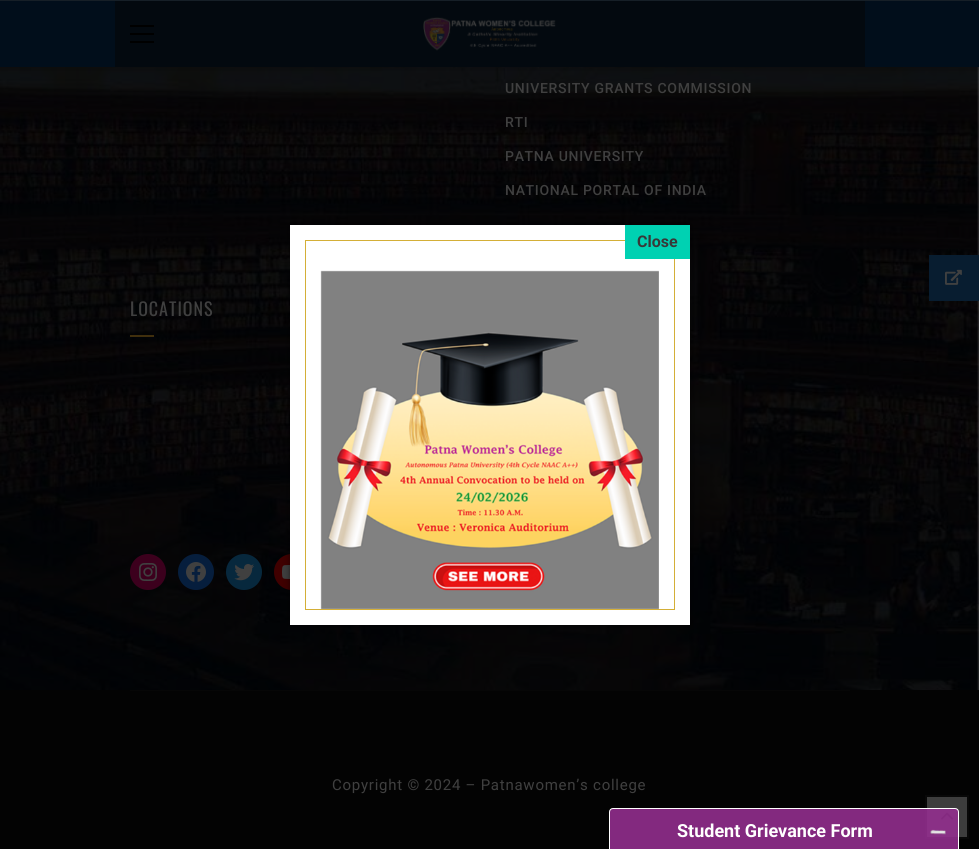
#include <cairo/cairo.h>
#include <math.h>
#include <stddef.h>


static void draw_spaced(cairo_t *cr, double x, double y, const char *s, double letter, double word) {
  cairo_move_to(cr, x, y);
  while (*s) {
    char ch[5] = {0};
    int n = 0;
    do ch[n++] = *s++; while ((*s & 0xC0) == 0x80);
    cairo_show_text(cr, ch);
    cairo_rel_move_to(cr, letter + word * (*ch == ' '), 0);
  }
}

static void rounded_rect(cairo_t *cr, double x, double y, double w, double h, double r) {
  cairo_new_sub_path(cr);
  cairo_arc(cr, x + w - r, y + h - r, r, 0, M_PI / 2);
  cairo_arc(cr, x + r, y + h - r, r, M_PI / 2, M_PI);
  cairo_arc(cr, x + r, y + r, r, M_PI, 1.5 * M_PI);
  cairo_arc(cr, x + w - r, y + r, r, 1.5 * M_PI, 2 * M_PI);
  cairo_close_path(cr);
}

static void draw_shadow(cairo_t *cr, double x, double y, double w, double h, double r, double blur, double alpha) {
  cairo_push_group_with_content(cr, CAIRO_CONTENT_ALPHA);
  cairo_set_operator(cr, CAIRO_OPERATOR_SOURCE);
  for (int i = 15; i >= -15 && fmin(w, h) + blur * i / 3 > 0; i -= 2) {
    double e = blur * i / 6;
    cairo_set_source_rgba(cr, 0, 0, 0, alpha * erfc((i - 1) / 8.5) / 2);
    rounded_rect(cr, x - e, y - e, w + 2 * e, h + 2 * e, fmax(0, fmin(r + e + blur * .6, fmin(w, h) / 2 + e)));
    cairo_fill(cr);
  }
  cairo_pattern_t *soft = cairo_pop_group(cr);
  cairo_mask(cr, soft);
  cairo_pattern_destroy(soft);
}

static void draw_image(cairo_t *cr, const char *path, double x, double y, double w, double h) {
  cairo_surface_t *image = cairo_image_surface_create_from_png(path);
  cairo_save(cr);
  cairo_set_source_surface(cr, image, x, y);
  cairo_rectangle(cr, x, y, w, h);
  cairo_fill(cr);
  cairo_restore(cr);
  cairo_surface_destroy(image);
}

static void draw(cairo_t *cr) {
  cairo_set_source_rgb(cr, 1, 1, 1);
  cairo_paint(cr);
  draw_image(cr, "images/2.png", 0, 67, 979, 623);
  cairo_set_source_rgb(cr, 0, 0, 0);
  draw_shadow(cr, -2, -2, 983, 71, 0, 2.5, 0.15);
  cairo_set_source_rgb(cr, 1 / 255.0, 14 / 255.0, 27 / 255.0);
  cairo_rectangle(cr, 0, 1, 979, 66);
  cairo_fill(cr);
  cairo_set_source_rgb(cr, 22 / 255.0, 31 / 255.0, 39 / 255.0);
  cairo_rectangle(cr, 0, 0, 979, 1);
  cairo_fill(cr);
  cairo_set_source_rgb(cr, 3 / 255.0, 9 / 255.0, 15 / 255.0);
  cairo_rectangle(cr, 115, 1, 750, 66);
  cairo_fill(cr);
  cairo_set_source_rgb(cr, 0, 0, 0);
  cairo_rectangle(cr, 130, 25, 24, 2);
  cairo_fill(cr);
  cairo_rectangle(cr, 130, 33, 24, 2);
  cairo_fill(cr);
  cairo_rectangle(cr, 130, 41, 24, 2);
  cairo_fill(cr);
  draw_image(cr, "images/1.png", 423, 17, 133, 34);
  cairo_set_source_rgb(cr, 64 / 255.0, 47 / 255.0, 13 / 255.0);
  cairo_rectangle(cr, 130, 335, 24, 2);
  cairo_fill(cr);
  cairo_set_source_rgb(cr, 60 / 255.0, 0, 29 / 255.0);
  cairo_arc(cr, 148, 572, 18, 0, 2 * M_PI);
  cairo_fill(cr);
  draw_image(cr, "images/3.png", 139, 563, 18, 18);
  cairo_set_source_rgb(cr, 6 / 255.0, 30 / 255.0, 61 / 255.0);
  cairo_arc(cr, 196, 572, 18, 0, 2 * M_PI);
  cairo_fill(cr);
  draw_image(cr, "images/4.png", 186, 562, 20, 20);
  cairo_set_source_rgb(cr, 7 / 255.0, 40 / 255.0, 61 / 255.0);
  cairo_arc(cr, 244, 572, 18, 0, 2 * M_PI);
  cairo_fill(cr);
  draw_image(cr, "images/5.png", 234, 564, 20, 17);
  cairo_set_source_rgb(cr, 64 / 255.0, 0, 0);
  cairo_arc(cr, 292, 572, 18, 0, 2 * M_PI);
  cairo_fill(cr);
  draw_image(cr, "images/6.png", 282, 565, 8, 14);
  cairo_set_source_rgb(cr, 3 / 255.0, 3 / 255.0, 3 / 255.0);
  cairo_rectangle(cr, 0, 690, 979, 159);
  cairo_fill(cr);
  cairo_set_source_rgb(cr, 6 / 255.0, 6 / 255.0, 6 / 255.0);
  cairo_rectangle(cr, 130, 690, 720, 1);
  cairo_fill(cr);
  cairo_set_source_rgb(cr, 0, 0, 0);
  draw_shadow(cr, 290, 225, 400, 400, 0, 4, 0.5);
  cairo_set_source_rgb(cr, 1, 1, 1);
  cairo_rectangle(cr, 290, 225, 400, 400);
  cairo_fill(cr);
  cairo_rectangle(cr, 305.5, 240.5, 369, 369);
  cairo_set_source_rgb(cr, 212 / 255.0, 175 / 255.0, 55 / 255.0);
  cairo_set_line_width(cr, 1);
  cairo_stroke(cr);
  cairo_set_source_rgb(cr, 0, 209 / 255.0, 178 / 255.0);
  cairo_rectangle(cr, 625, 225, 65, 34);
  cairo_fill(cr);
  draw_image(cr, "images/7.png", 320, 270, 339, 339);
  cairo_set_source_rgb(cr, 8 / 255.0, 29 / 255.0, 48 / 255.0);
  cairo_rectangle(cr, 929, 255, 50, 46);
  cairo_fill(cr);
  draw_image(cr, "images/8.png", 945, 269, 17, 16);
  cairo_set_source_rgb(cr, 61 / 255.0, 61 / 255.0, 61 / 255.0);
  cairo_rectangle(cr, 926, 796, 42, 42);
  cairo_fill_preserve(cr);
  cairo_set_source_rgb(cr, 8 / 255.0, 8 / 255.0, 8 / 255.0);
  cairo_set_line_width(cr, 2);
  cairo_stroke(cr);
  draw_image(cr, "images/10.png", 941, 812, 13, 8);
  cairo_set_source_rgba(cr, 147 / 255.0, 47 / 255.0, 143 / 255.0, 0.89);
  cairo_new_path(cr);
  cairo_move_to(cr, 613, 808.5);
  cairo_line_to(cr, 955, 808.5);
  cairo_curve_to(cr, 957, 808.5, 958.5, 810, 958.5, 812);
  cairo_line_to(cr, 958.5, 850.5);
  cairo_line_to(cr, 609.5, 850.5);
  cairo_line_to(cr, 609.5, 812);
  cairo_curve_to(cr, 609.5, 810, 611, 808.5, 613, 808.5);
  cairo_close_path(cr);
  cairo_fill_preserve(cr);
  cairo_set_source_rgb(cr, 1, 1, 1);
  cairo_set_line_width(cr, 1);
  cairo_stroke(cr);
  draw_image(cr, "images/9.png", 930, 829, 16, 6);
  cairo_select_font_face(cr, "Roboto Medium", CAIRO_FONT_SLANT_NORMAL, CAIRO_FONT_WEIGHT_NORMAL);
  cairo_set_font_size(cr, 14);
  cairo_set_source_rgb(cr, 64 / 255.0, 64 / 255.0, 64 / 255.0);
  draw_spaced(cr, 505, 93, "UNIVERSITY GRANTS COMMISSION", 0.7, 0);
  draw_spaced(cr, 505, 127, "RTI", 0.7, 0);
  draw_spaced(cr, 505, 161, "PATNA UNIVERSITY", 0.7, 0);
  draw_spaced(cr, 505, 195, "NATIONAL PORTAL OF INDIA", 0.7, 0);
  cairo_select_font_face(cr, "Oswald", CAIRO_FONT_SLANT_NORMAL, CAIRO_FONT_WEIGHT_NORMAL);
  cairo_set_font_size(cr, 18);
  draw_spaced(cr, 130, 316, "LOCATIONS", 1, 0);
  cairo_select_font_face(cr, "Roboto", CAIRO_FONT_SLANT_NORMAL, CAIRO_FONT_WEIGHT_NORMAL);
  cairo_set_font_size(cr, 15);
  draw_spaced(cr, 332, 790, "Copyright © 2024 – Patnawomen’s college", 0.75, 0);
  cairo_select_font_face(cr, "Roboto", CAIRO_FONT_SLANT_NORMAL, CAIRO_FONT_WEIGHT_BOLD);
  cairo_set_font_size(cr, 16);
  cairo_set_source_rgb(cr, 56 / 255.0, 56 / 255.0, 56 / 255.0);
  cairo_move_to(cr, 637, 247);
  cairo_show_text(cr, "Close");
  cairo_set_font_size(cr, 18);
  cairo_set_source_rgb(cr, 1, 1, 1);
  cairo_move_to(cr, 677, 837);
  cairo_show_text(cr, "Student Grievance Form");
}

int main(void) {
  cairo_surface_t *surface = cairo_image_surface_create(CAIRO_FORMAT_RGB24, 979, 849);
  cairo_t *cr = cairo_create(surface);
  cairo_font_options_t *options = cairo_font_options_create();
  cairo_font_options_set_hint_metrics(options, CAIRO_HINT_METRICS_OFF);
  cairo_font_options_set_hint_style(options, CAIRO_HINT_STYLE_NONE);
  cairo_set_font_options(cr, options);
  cairo_set_miter_limit(cr, 4);
  draw(cr);
  cairo_surface_write_to_png(surface, "out.png");
  cairo_font_options_destroy(options);
  cairo_destroy(cr);
  cairo_surface_destroy(surface);
  return 0;
}
